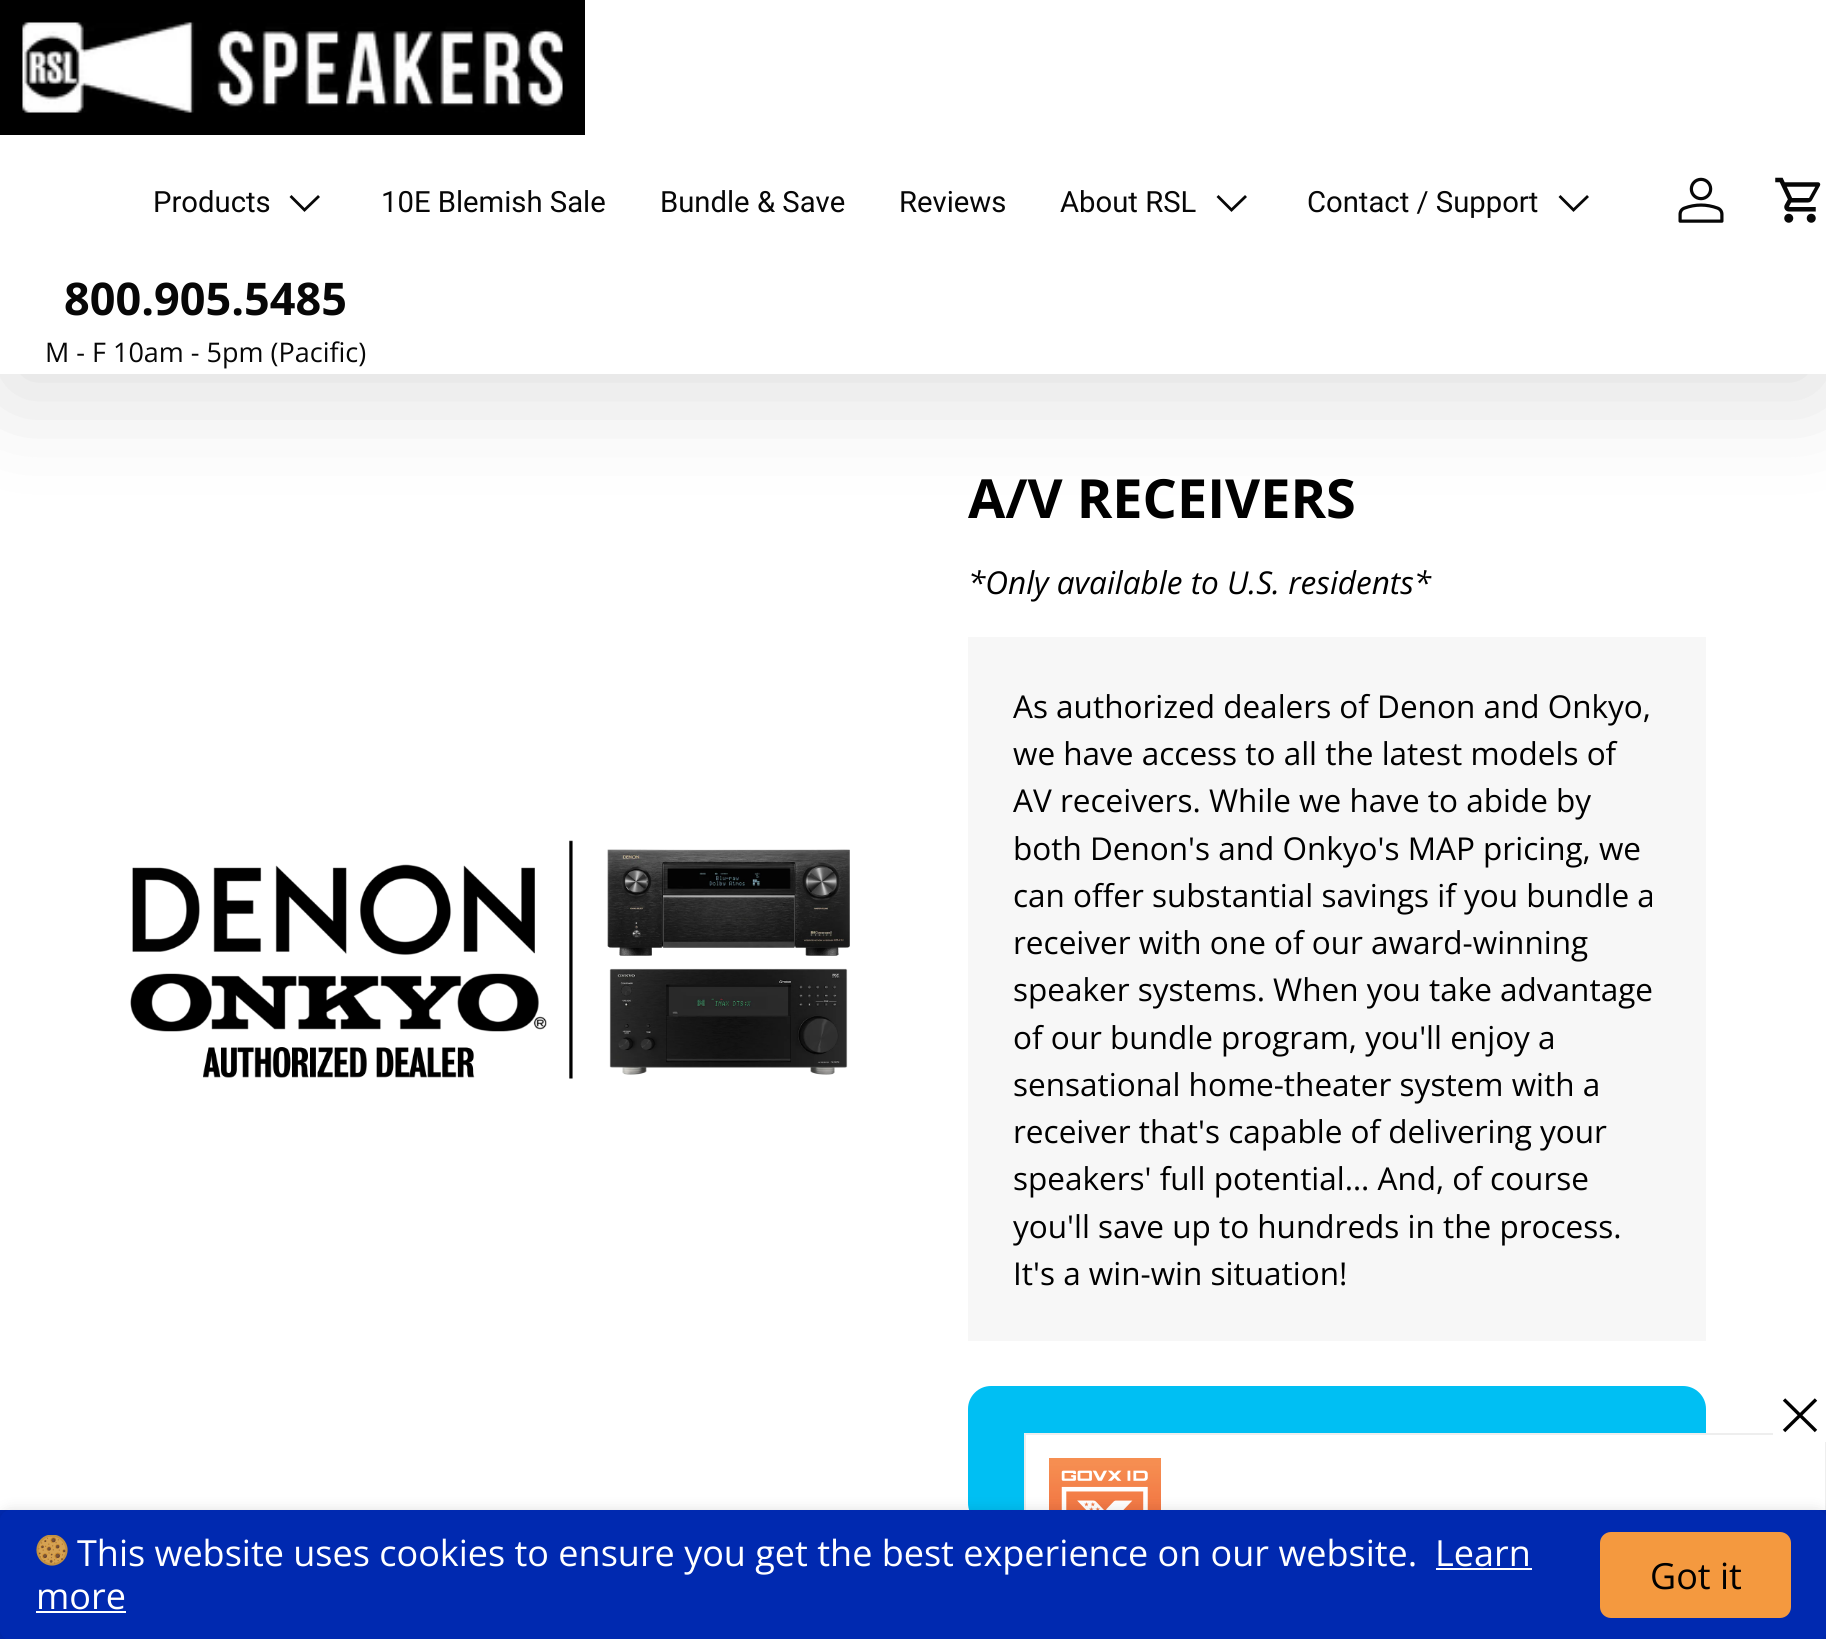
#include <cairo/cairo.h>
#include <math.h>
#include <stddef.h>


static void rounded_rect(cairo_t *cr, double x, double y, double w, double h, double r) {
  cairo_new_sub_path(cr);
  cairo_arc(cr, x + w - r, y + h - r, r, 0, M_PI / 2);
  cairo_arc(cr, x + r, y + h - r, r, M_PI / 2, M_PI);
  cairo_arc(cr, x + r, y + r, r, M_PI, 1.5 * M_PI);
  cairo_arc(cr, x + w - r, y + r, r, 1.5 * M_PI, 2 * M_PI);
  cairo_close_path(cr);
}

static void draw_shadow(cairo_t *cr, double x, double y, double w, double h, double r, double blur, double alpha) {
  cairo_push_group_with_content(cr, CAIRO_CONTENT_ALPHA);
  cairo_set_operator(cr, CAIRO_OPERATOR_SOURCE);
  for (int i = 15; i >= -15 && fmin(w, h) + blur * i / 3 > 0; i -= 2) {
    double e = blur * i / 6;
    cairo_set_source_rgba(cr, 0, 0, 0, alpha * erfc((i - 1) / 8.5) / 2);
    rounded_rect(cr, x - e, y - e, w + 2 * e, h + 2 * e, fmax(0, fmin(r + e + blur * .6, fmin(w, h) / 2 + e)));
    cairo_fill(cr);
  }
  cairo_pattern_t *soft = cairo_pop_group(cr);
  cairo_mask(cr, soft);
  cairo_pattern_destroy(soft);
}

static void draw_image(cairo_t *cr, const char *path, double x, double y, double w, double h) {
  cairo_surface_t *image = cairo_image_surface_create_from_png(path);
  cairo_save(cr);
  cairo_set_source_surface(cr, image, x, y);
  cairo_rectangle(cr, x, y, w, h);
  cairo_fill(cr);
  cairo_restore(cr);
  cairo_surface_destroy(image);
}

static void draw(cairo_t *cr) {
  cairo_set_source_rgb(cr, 1, 1, 1);
  cairo_paint(cr);
  cairo_save(cr);
  cairo_set_fill_rule(cr, CAIRO_FILL_RULE_EVEN_ODD);
  cairo_new_path(cr);
  cairo_move_to(cr, 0, 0);
  cairo_line_to(cr, 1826, 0);
  cairo_line_to(cr, 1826, 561);
  cairo_line_to(cr, 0, 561);
  cairo_close_path(cr);
  cairo_move_to(cr, 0, 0);
  cairo_line_to(cr, 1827, 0);
  cairo_line_to(cr, 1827, 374);
  cairo_line_to(cr, 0, 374);
  cairo_close_path(cr);
  cairo_clip(cr);
  cairo_set_source_rgb(cr, 0, 0, 0);
  draw_shadow(cr, 5, 27, 1818, 365, 0, 56, 0.14);
  cairo_restore(cr);
  cairo_set_source_rgb(cr, 0, 0, 0);
  cairo_rectangle(cr, 0, 0, 585, 135);
  cairo_fill(cr);
  draw_image(cr, "images/1.png", 22, 22, 541, 91);
  cairo_new_path(cr);
  cairo_move_to(cr, 319, 196);
  cairo_line_to(cr, 304.5, 210);
  cairo_line_to(cr, 290.5, 196);
  cairo_set_source_rgb(cr, 7 / 255.0, 7 / 255.0, 7 / 255.0);
  cairo_set_line_width(cr, 2.8);
  cairo_stroke(cr);
  cairo_new_path(cr);
  cairo_move_to(cr, 1246, 196);
  cairo_line_to(cr, 1231.5, 210);
  cairo_line_to(cr, 1217.5, 196);
  cairo_stroke(cr);
  cairo_new_path(cr);
  cairo_move_to(cr, 1588, 196);
  cairo_line_to(cr, 1573.5, 210);
  cairo_line_to(cr, 1559.5, 196);
  cairo_stroke(cr);
  draw_image(cr, "images/2.png", 1678, 177, 46, 46);
  draw_image(cr, "images/3.png", 1775, 177, 46, 46);
  draw_image(cr, "images/4.png", 130, 840, 720, 239);
  cairo_set_source_rgb(cr, 247 / 255.0, 247 / 255.0, 247 / 255.0);
  cairo_rectangle(cr, 968, 637, 738, 704);
  cairo_fill(cr);
  cairo_set_source_rgb(cr, 0, 191 / 255.0, 243 / 255.0);
  rounded_rect(cr, 968, 1386, 738, 140, 23);
  cairo_fill(cr);
  cairo_set_source_rgb(cr, 1, 1, 1);
  cairo_rectangle(cr, 1026, 1435, 680, 75);
  cairo_fill(cr);
  cairo_rectangle(cr, 1025, 1434, 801, 160);
  cairo_set_source_rgb(cr, 238 / 255.0, 238 / 255.0, 238 / 255.0);
  cairo_set_line_width(cr, 2);
  cairo_stroke(cr);
  cairo_set_source_rgb(cr, 1, 1, 1);
  cairo_rectangle(cr, 1773, 1433, 53, 9);
  cairo_fill(cr);
  cairo_new_path(cr);
  cairo_move_to(cr, 1784, 1431);
  cairo_line_to(cr, 1816, 1399.5);
  cairo_move_to(cr, 1784, 1399.5);
  cairo_line_to(cr, 1816, 1431);
  cairo_set_source_rgb(cr, 0, 0, 0);
  cairo_set_line_width(cr, 3.4);
  cairo_set_line_join(cr, CAIRO_LINE_JOIN_ROUND);
  cairo_stroke(cr);
  draw_image(cr, "images/5.png", 1049, 1458, 112, 52);
  cairo_set_source_rgb(cr, 0, 41 / 255.0, 176 / 255.0);
  cairo_rectangle(cr, 0, 1510, 1826, 129);
  cairo_fill(cr);
  cairo_save(cr);
  cairo_set_fill_rule(cr, CAIRO_FILL_RULE_EVEN_ODD);
  cairo_new_path(cr);
  cairo_move_to(cr, 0, 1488);
  cairo_line_to(cr, 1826, 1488);
  cairo_line_to(cr, 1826, 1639);
  cairo_line_to(cr, 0, 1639);
  cairo_close_path(cr);
  cairo_move_to(cr, 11, 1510);
  cairo_line_to(cr, 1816, 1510);
  cairo_curve_to(cr, 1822, 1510, 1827, 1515, 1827, 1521);
  cairo_line_to(cr, 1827, 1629);
  cairo_curve_to(cr, 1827, 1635, 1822, 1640, 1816, 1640);
  cairo_line_to(cr, 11, 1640);
  cairo_curve_to(cr, 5, 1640, 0, 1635, 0, 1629);
  cairo_line_to(cr, 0, 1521);
  cairo_curve_to(cr, 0, 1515, 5, 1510, 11, 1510);
  cairo_close_path(cr);
  cairo_clip(cr);
  cairo_set_source_rgb(cr, 0, 0, 0);
  draw_shadow(cr, 0, 1510, 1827, 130, 11, 7, 0.12);
  cairo_restore(cr);
  draw_image(cr, "images/6.png", 36, 1535, 32, 31);
  cairo_set_source_rgb(cr, 1, 1, 1);
  cairo_rectangle(cr, 1436, 1568, 96, 2);
  cairo_fill(cr);
  cairo_rectangle(cr, 36, 1611, 90, 2);
  cairo_fill(cr);
  cairo_set_source_rgb(cr, 244 / 255.0, 153 / 255.0, 63 / 255.0);
  rounded_rect(cr, 1600, 1532, 191, 86, 11);
  cairo_fill(cr);
  cairo_select_font_face(cr, "Roboto", CAIRO_FONT_SLANT_NORMAL, CAIRO_FONT_WEIGHT_NORMAL);
  cairo_set_font_size(cr, 29.25);
  cairo_set_source_rgb(cr, 7 / 255.0, 7 / 255.0, 7 / 255.0);
  cairo_move_to(cr, 153, 212);
  cairo_show_text(cr, "Products");
  cairo_move_to(cr, 381, 212);
  cairo_show_text(cr, "10E Blemish Sale");
  cairo_move_to(cr, 660, 212);
  cairo_show_text(cr, "Bundle & Save");
  cairo_move_to(cr, 899, 212);
  cairo_show_text(cr, "Reviews");
  cairo_move_to(cr, 1060, 212);
  cairo_show_text(cr, "About RSL");
  cairo_move_to(cr, 1307, 212);
  cairo_show_text(cr, "Contact / Support");
  cairo_select_font_face(cr, "Open Sans", CAIRO_FONT_SLANT_NORMAL, CAIRO_FONT_WEIGHT_BOLD);
  cairo_set_font_size(cr, 45);
  cairo_move_to(cr, 64, 315);
  cairo_show_text(cr, "800.905.5485");
  cairo_select_font_face(cr, "Open Sans", CAIRO_FONT_SLANT_NORMAL, CAIRO_FONT_WEIGHT_NORMAL);
  cairo_set_font_size(cr, 27);
  cairo_move_to(cr, 45, 362);
  cairo_show_text(cr, "M - F 10am - 5pm (Pacific)");
  cairo_select_font_face(cr, "Open Sans", CAIRO_FONT_SLANT_NORMAL, CAIRO_FONT_WEIGHT_BOLD);
  cairo_set_font_size(cr, 54);
  cairo_set_source_rgb(cr, 0, 0, 0);
  cairo_move_to(cr, 968, 518);
  cairo_show_text(cr, "A/V RECEIVERS");
  cairo_select_font_face(cr, "Open Sans", CAIRO_FONT_SLANT_ITALIC, CAIRO_FONT_WEIGHT_NORMAL);
  cairo_set_font_size(cr, 31.5);
  cairo_move_to(cr, 968, 594);
  cairo_show_text(cr, "*Only available to U.S. residents*");
  cairo_select_font_face(cr, "Open Sans", CAIRO_FONT_SLANT_NORMAL, CAIRO_FONT_WEIGHT_NORMAL);
  cairo_move_to(cr, 1013, 718);
  cairo_show_text(cr, "As authorized dealers of Denon and Onkyo,");
  cairo_move_to(cr, 1013, 765);
  cairo_show_text(cr, "we have access to all the latest models of");
  cairo_move_to(cr, 1013, 812);
  cairo_show_text(cr, "AV receivers. While we have to abide by");
  cairo_move_to(cr, 1013, 860);
  cairo_show_text(cr, "both Denon's and Onkyo's MAP pricing, we");
  cairo_move_to(cr, 1013, 907);
  cairo_show_text(cr, "can offer substantial savings if you bundle a");
  cairo_move_to(cr, 1013, 954);
  cairo_show_text(cr, "receiver with one of our award-winning");
  cairo_move_to(cr, 1013, 1001);
  cairo_show_text(cr, "speaker systems. When you take advantage");
  cairo_move_to(cr, 1013, 1049);
  cairo_show_text(cr, "of our bundle program, you'll enjoy a");
  cairo_move_to(cr, 1013, 1096);
  cairo_show_text(cr, "sensational home-theater system with a");
  cairo_move_to(cr, 1013, 1143);
  cairo_show_text(cr, "receiver that's capable of delivering your");
  cairo_move_to(cr, 1013, 1190);
  cairo_show_text(cr, "speakers' full potential… And, of course");
  cairo_move_to(cr, 1013, 1238);
  cairo_show_text(cr, "you'll save up to hundreds in the process.");
  cairo_move_to(cr, 1013, 1285);
  cairo_show_text(cr, "It's a win-win situation!");
  cairo_set_font_size(cr, 36);
  cairo_set_source_rgb(cr, 1, 1, 1);
  cairo_move_to(cr, 77, 1566);
  cairo_show_text(cr, "This website uses cookies to ensure you get the best experience on our website.");
  cairo_move_to(cr, 1435, 1566);
  cairo_show_text(cr, "Learn");
  cairo_move_to(cr, 36, 1609);
  cairo_show_text(cr, "more");
  cairo_set_source_rgb(cr, 0, 0, 0);
  cairo_move_to(cr, 1650, 1589);
  cairo_show_text(cr, "Got it");
}

int main(void) {
  cairo_surface_t *surface = cairo_image_surface_create(CAIRO_FORMAT_RGB24, 1826, 1639);
  cairo_t *cr = cairo_create(surface);
  cairo_font_options_t *options = cairo_font_options_create();
  cairo_font_options_set_hint_metrics(options, CAIRO_HINT_METRICS_OFF);
  cairo_font_options_set_hint_style(options, CAIRO_HINT_STYLE_NONE);
  cairo_set_font_options(cr, options);
  cairo_set_miter_limit(cr, 4);
  draw(cr);
  cairo_surface_write_to_png(surface, "out.png");
  cairo_font_options_destroy(options);
  cairo_destroy(cr);
  cairo_surface_destroy(surface);
  return 0;
}
